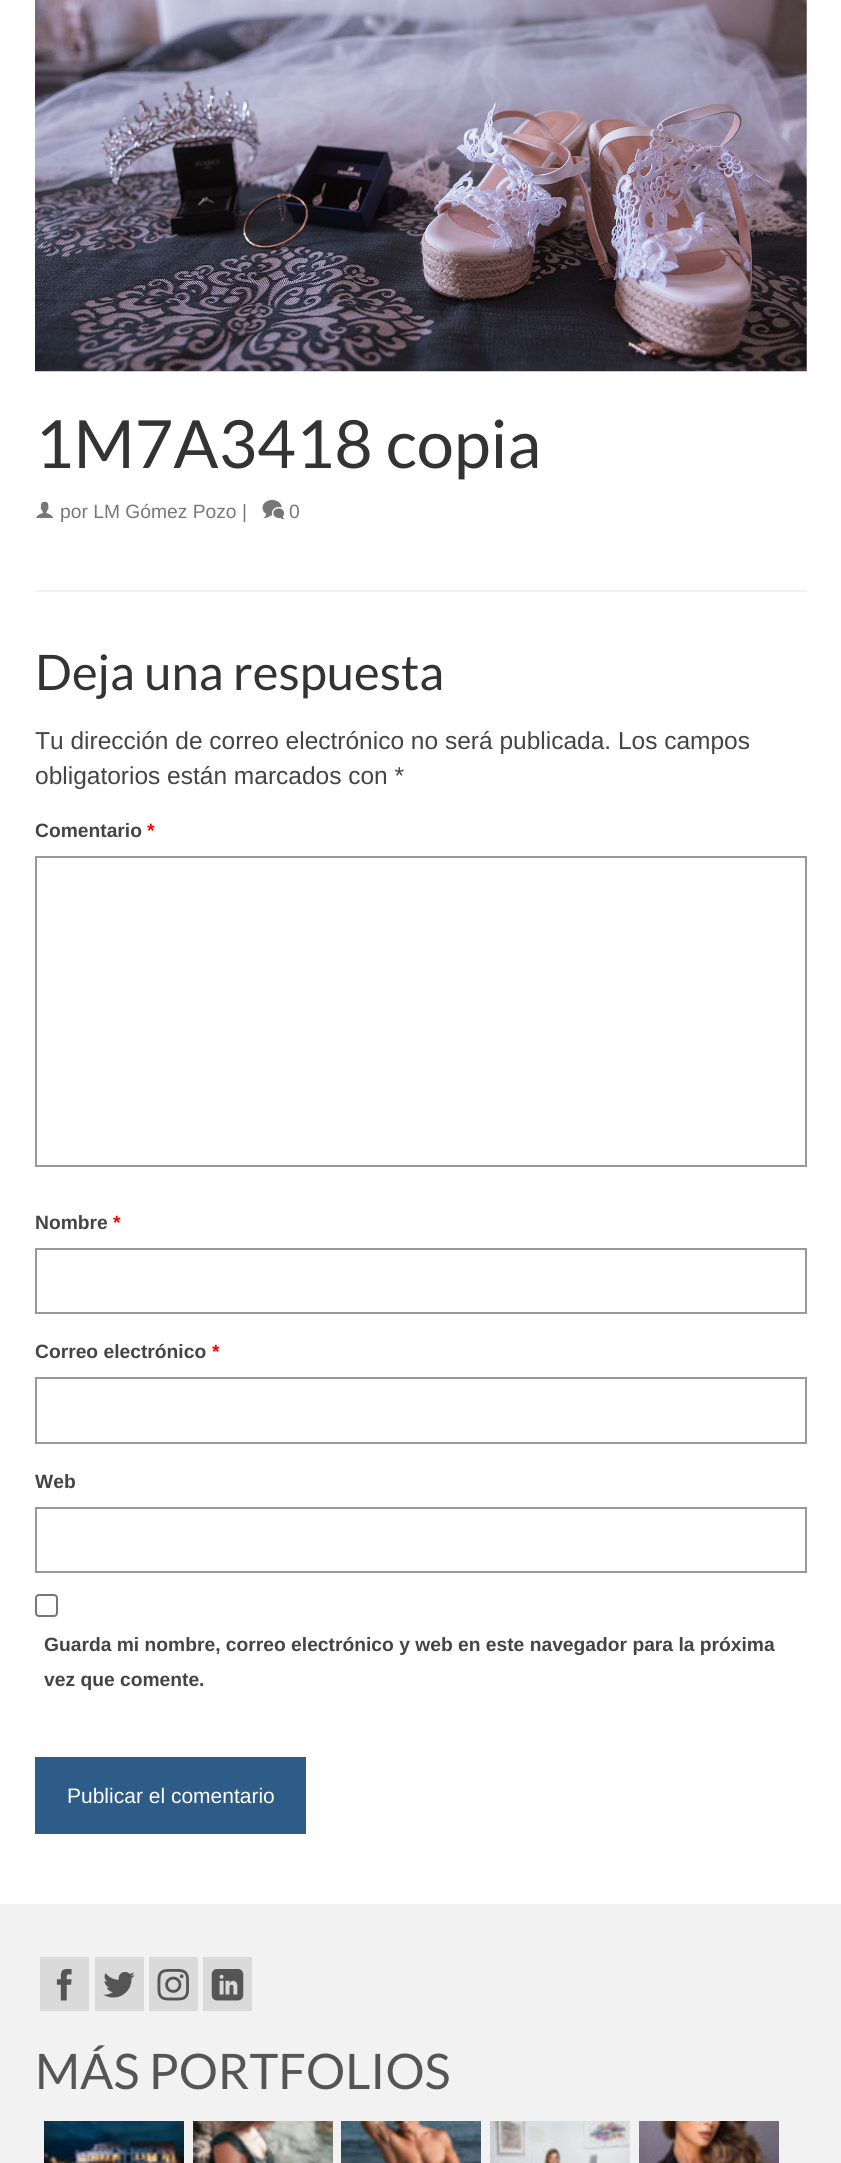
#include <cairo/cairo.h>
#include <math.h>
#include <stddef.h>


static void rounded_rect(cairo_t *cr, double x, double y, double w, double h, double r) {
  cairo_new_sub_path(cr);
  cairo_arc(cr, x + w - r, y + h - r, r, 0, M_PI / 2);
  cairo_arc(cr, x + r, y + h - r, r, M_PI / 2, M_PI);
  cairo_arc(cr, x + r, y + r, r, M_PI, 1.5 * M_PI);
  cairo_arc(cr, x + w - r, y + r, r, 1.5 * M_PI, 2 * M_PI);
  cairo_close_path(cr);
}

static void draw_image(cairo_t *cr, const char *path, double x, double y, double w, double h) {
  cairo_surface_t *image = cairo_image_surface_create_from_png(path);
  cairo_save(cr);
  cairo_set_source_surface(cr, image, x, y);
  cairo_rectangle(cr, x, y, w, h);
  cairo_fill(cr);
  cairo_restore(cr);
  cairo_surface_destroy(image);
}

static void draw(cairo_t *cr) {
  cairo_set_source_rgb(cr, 1, 1, 1);
  cairo_paint(cr);
  draw_image(cr, "images/1.png", 35, 0, 772, 372);
  draw_image(cr, "images/2.png", 36, 501, 17, 17);
  draw_image(cr, "images/3.png", 262, 500, 23, 20);
  cairo_set_source_rgb(cr, 242 / 255.0, 242 / 255.0, 242 / 255.0);
  cairo_rectangle(cr, 35, 590, 772, 2);
  cairo_fill(cr);
  cairo_rectangle(cr, 36, 857, 770, 309);
  cairo_set_source_rgb(cr, 153 / 255.0, 153 / 255.0, 153 / 255.0);
  cairo_stroke(cr);
  cairo_rectangle(cr, 36, 1249, 770, 64);
  cairo_stroke(cr);
  cairo_rectangle(cr, 36, 1378, 770, 65);
  cairo_stroke(cr);
  cairo_rectangle(cr, 36, 1508, 770, 64);
  cairo_stroke(cr);
  rounded_rect(cr, 36, 1595, 21, 21, 3);
  cairo_set_source_rgb(cr, 118 / 255.0, 118 / 255.0, 118 / 255.0);
  cairo_stroke(cr);
  cairo_set_source_rgb(cr, 45 / 255.0, 92 / 255.0, 136 / 255.0);
  cairo_rectangle(cr, 35, 1757, 271, 77);
  cairo_fill(cr);
  cairo_set_source_rgb(cr, 242 / 255.0, 242 / 255.0, 242 / 255.0);
  cairo_rectangle(cr, 0, 1904, 841, 259);
  cairo_fill(cr);
  cairo_set_source_rgb(cr, 218 / 255.0, 218 / 255.0, 218 / 255.0);
  cairo_rectangle(cr, 40, 1957, 49, 54);
  cairo_fill(cr);
  draw_image(cr, "images/4.png", 56, 1969, 16, 32);
  cairo_rectangle(cr, 95, 1957, 49, 54);
  cairo_fill(cr);
  draw_image(cr, "images/5.png", 103, 1971, 32, 27);
  cairo_rectangle(cr, 149, 1957, 49, 54);
  cairo_fill(cr);
  draw_image(cr, "images/6.png", 157, 1969, 32, 32);
  cairo_rectangle(cr, 203, 1957, 49, 54);
  cairo_fill(cr);
  draw_image(cr, "images/7.png", 211, 1969, 33, 32);
  draw_image(cr, "images/8.png", 44, 2121, 140, 42);
  draw_image(cr, "images/9.png", 193, 2121, 140, 42);
  draw_image(cr, "images/10.png", 341, 2121, 140, 42);
  draw_image(cr, "images/11.png", 490, 2121, 140, 42);
  draw_image(cr, "images/12.png", 639, 2121, 140, 42);
  cairo_select_font_face(cr, "Lato", CAIRO_FONT_SLANT_NORMAL, CAIRO_FONT_WEIGHT_NORMAL);
  cairo_set_font_size(cr, 66.5);
  cairo_set_source_rgb(cr, 51 / 255.0, 51 / 255.0, 51 / 255.0);
  cairo_move_to(cr, 35, 468);
  cairo_show_text(cr, "1M7A3418 copia");
  cairo_select_font_face(cr, "Liberation Sans", CAIRO_FONT_SLANT_NORMAL, CAIRO_FONT_WEIGHT_NORMAL);
  cairo_set_font_size(cr, 19.25);
  cairo_set_source_rgb(cr, 119 / 255.0, 119 / 255.0, 119 / 255.0);
  cairo_move_to(cr, 60, 518);
  cairo_show_text(cr, "por LM Gómez Pozo |");
  cairo_move_to(cr, 289, 518);
  cairo_show_text(cr, "0");
  cairo_select_font_face(cr, "Lato", CAIRO_FONT_SLANT_NORMAL, CAIRO_FONT_WEIGHT_NORMAL);
  cairo_set_font_size(cr, 49);
  cairo_set_source_rgb(cr, 51 / 255.0, 51 / 255.0, 51 / 255.0);
  cairo_move_to(cr, 35, 690);
  cairo_show_text(cr, "Deja una respuesta");
  cairo_select_font_face(cr, "Liberation Sans", CAIRO_FONT_SLANT_NORMAL, CAIRO_FONT_WEIGHT_NORMAL);
  cairo_set_font_size(cr, 24.5);
  cairo_set_source_rgb(cr, 68 / 255.0, 68 / 255.0, 68 / 255.0);
  cairo_move_to(cr, 35, 749);
  cairo_show_text(cr, "Tu dirección de correo electrónico no será publicada. Los campos");
  cairo_move_to(cr, 35, 784);
  cairo_show_text(cr, "obligatorios están marcados con *");
  cairo_select_font_face(cr, "Liberation Sans", CAIRO_FONT_SLANT_NORMAL, CAIRO_FONT_WEIGHT_BOLD);
  cairo_set_font_size(cr, 19.25);
  cairo_move_to(cr, 35, 837);
  cairo_show_text(cr, "Comentario");
  cairo_set_source_rgb(cr, 1, 0, 0);
  cairo_move_to(cr, 147, 837);
  cairo_show_text(cr, "*");
  cairo_set_source_rgb(cr, 68 / 255.0, 68 / 255.0, 68 / 255.0);
  cairo_move_to(cr, 35, 1229);
  cairo_show_text(cr, "Nombre");
  cairo_set_source_rgb(cr, 1, 0, 0);
  cairo_move_to(cr, 113, 1229);
  cairo_show_text(cr, "*");
  cairo_set_source_rgb(cr, 68 / 255.0, 68 / 255.0, 68 / 255.0);
  cairo_move_to(cr, 35, 1358);
  cairo_show_text(cr, "Correo electrónico");
  cairo_set_source_rgb(cr, 1, 0, 0);
  cairo_move_to(cr, 212, 1358);
  cairo_show_text(cr, "*");
  cairo_set_source_rgb(cr, 68 / 255.0, 68 / 255.0, 68 / 255.0);
  cairo_move_to(cr, 35, 1488);
  cairo_show_text(cr, "Web");
  cairo_move_to(cr, 44, 1651);
  cairo_show_text(cr, "Guarda mi nombre, correo electrónico y web en este navegador para la próxima");
  cairo_move_to(cr, 44, 1686);
  cairo_show_text(cr, "vez que comente.");
  cairo_select_font_face(cr, "Liberation Sans", CAIRO_FONT_SLANT_NORMAL, CAIRO_FONT_WEIGHT_NORMAL);
  cairo_set_font_size(cr, 21);
  cairo_set_source_rgb(cr, 1, 1, 1);
  cairo_move_to(cr, 67, 1803);
  cairo_show_text(cr, "Publicar el comentario");
  cairo_select_font_face(cr, "Lato", CAIRO_FONT_SLANT_NORMAL, CAIRO_FONT_WEIGHT_NORMAL);
  cairo_set_font_size(cr, 49);
  cairo_set_source_rgb(cr, 85 / 255.0, 85 / 255.0, 85 / 255.0);
  cairo_move_to(cr, 35, 2089);
  cairo_show_text(cr, "MÁS PORTFOLIOS");
}

int main(void) {
  cairo_surface_t *surface = cairo_image_surface_create(CAIRO_FORMAT_RGB24, 841, 2163);
  cairo_t *cr = cairo_create(surface);
  cairo_font_options_t *options = cairo_font_options_create();
  cairo_font_options_set_hint_metrics(options, CAIRO_HINT_METRICS_OFF);
  cairo_font_options_set_hint_style(options, CAIRO_HINT_STYLE_NONE);
  cairo_set_font_options(cr, options);
  cairo_set_miter_limit(cr, 4);
  draw(cr);
  cairo_surface_write_to_png(surface, "out.png");
  cairo_font_options_destroy(options);
  cairo_destroy(cr);
  cairo_surface_destroy(surface);
  return 0;
}
